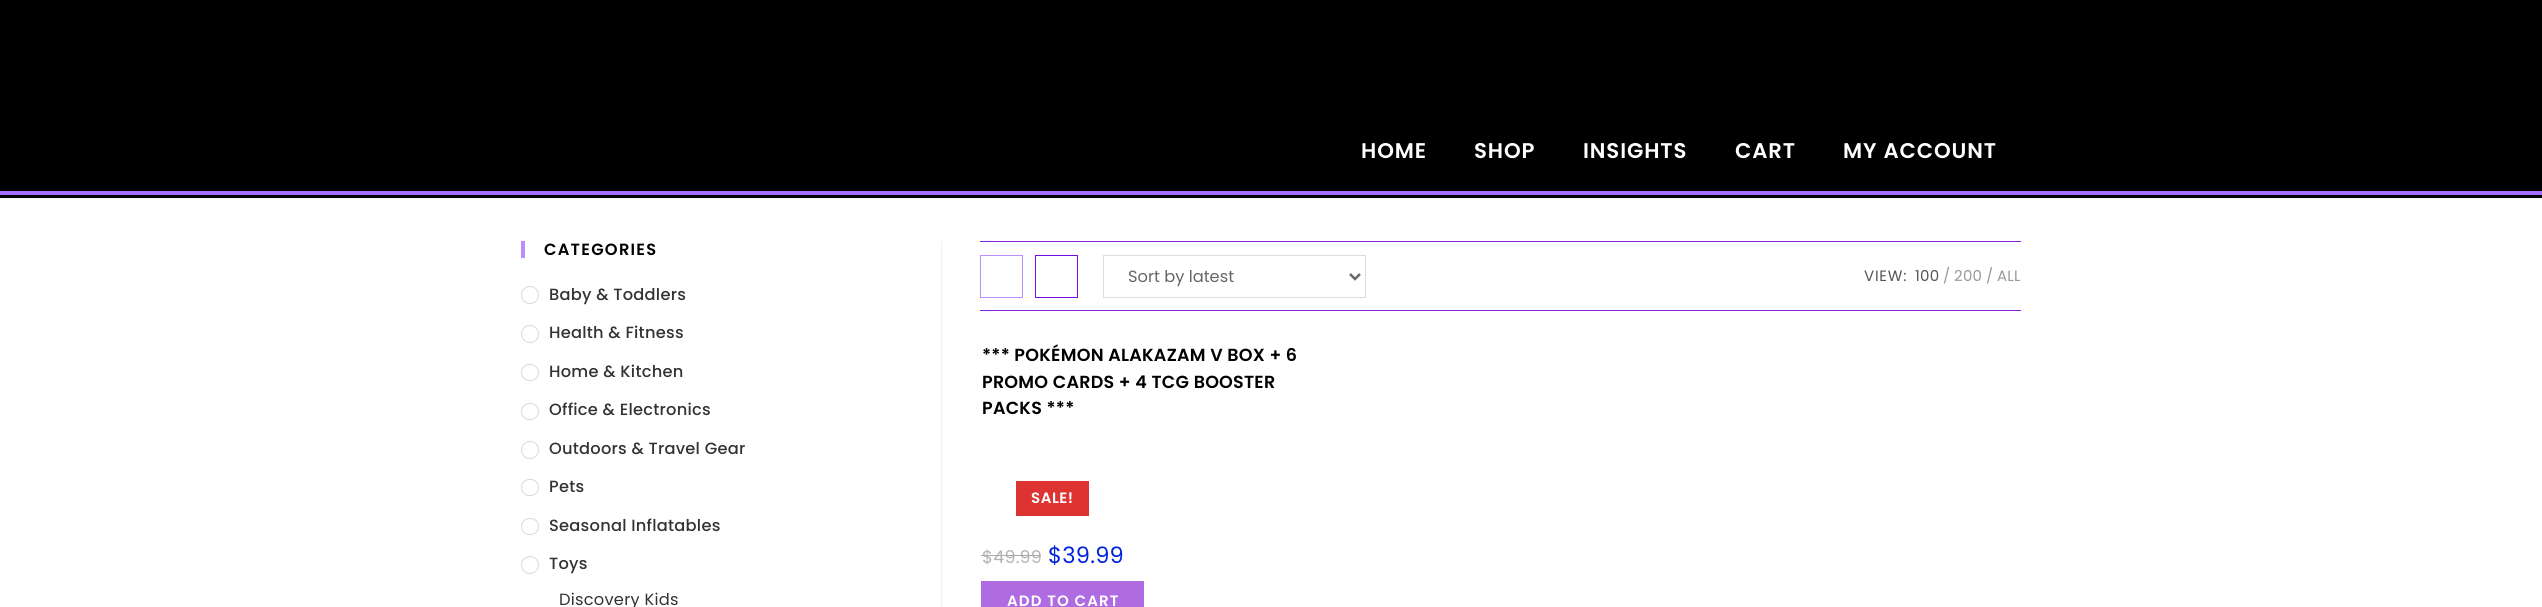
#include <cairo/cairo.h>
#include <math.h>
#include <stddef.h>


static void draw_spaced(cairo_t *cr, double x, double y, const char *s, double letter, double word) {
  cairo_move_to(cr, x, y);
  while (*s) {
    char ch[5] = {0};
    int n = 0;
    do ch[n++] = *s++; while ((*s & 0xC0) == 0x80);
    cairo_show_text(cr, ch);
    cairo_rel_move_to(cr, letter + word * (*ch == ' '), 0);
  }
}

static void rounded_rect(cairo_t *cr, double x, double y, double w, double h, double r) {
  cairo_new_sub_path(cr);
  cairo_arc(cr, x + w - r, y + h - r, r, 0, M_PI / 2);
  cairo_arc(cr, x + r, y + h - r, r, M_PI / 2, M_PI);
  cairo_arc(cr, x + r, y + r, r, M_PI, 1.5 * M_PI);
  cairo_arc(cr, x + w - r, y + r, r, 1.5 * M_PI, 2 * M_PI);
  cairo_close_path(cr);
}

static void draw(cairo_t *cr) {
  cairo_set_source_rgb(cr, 1, 1, 1);
  cairo_paint(cr);
  cairo_set_source_rgb(cr, 241 / 255.0, 241 / 255.0, 241 / 255.0);
  cairo_rectangle(cr, 0, 198, 2542, 1);
  cairo_fill(cr);
  cairo_set_source_rgb(cr, 0, 0, 0);
  cairo_rectangle(cr, 0, 0, 2542, 198);
  cairo_fill(cr);
  cairo_set_source_rgb(cr, 165 / 255.0, 109 / 255.0, 1);
  cairo_rectangle(cr, 0, 191, 2542, 4);
  cairo_fill(cr);
  cairo_set_source_rgb(cr, 185 / 255.0, 142 / 255.0, 1);
  cairo_rectangle(cr, 521, 241, 4, 17);
  cairo_fill(cr);
  cairo_arc(cr, 530, 295, 8.5, 0, 2 * M_PI);
  cairo_set_source_rgb(cr, 217 / 255.0, 217 / 255.0, 217 / 255.0);
  cairo_set_line_width(cr, 1);
  cairo_stroke(cr);
  cairo_arc(cr, 530, 334, 8.5, 0, 2 * M_PI);
  cairo_stroke(cr);
  rounded_rect(cr, 521.5, 364.5, 17, 16, 8);
  cairo_stroke(cr);
  rounded_rect(cr, 521.5, 403.5, 17, 16, 8);
  cairo_stroke(cr);
  cairo_arc(cr, 530, 450, 8.5, 0, 2 * M_PI);
  cairo_stroke(cr);
  rounded_rect(cr, 521.5, 479.5, 17, 16, 8);
  cairo_stroke(cr);
  rounded_rect(cr, 521.5, 518.5, 17, 16, 8);
  cairo_stroke(cr);
  cairo_arc(cr, 530, 565, 8.5, 0, 2 * M_PI);
  cairo_stroke(cr);
  cairo_set_source_rgb(cr, 241 / 255.0, 241 / 255.0, 241 / 255.0);
  cairo_rectangle(cr, 941, 241, 1, 366);
  cairo_fill(cr);
  cairo_set_source_rgb(cr, 130 / 255.0, 36 / 255.0, 227 / 255.0);
  cairo_rectangle(cr, 980, 241, 1041, 1);
  cairo_fill(cr);
  cairo_rectangle(cr, 980, 310, 1041, 1);
  cairo_fill(cr);
  cairo_rectangle(cr, 980.5, 255.5, 42, 42);
  cairo_set_source_rgb(cr, 185 / 255.0, 142 / 255.0, 1);
  cairo_stroke(cr);
  cairo_rectangle(cr, 1035.5, 255.5, 42, 42);
  cairo_set_source_rgb(cr, 120 / 255.0, 13 / 255.0, 226 / 255.0);
  cairo_stroke(cr);
  cairo_rectangle(cr, 1103.5, 255.5, 262, 42);
  cairo_set_source_rgb(cr, 221 / 255.0, 221 / 255.0, 221 / 255.0);
  cairo_stroke(cr);
  cairo_new_path(cr);
  cairo_move_to(cr, 1350, 274);
  cairo_line_to(cr, 1355, 279);
  cairo_line_to(cr, 1360, 274);
  cairo_set_source_rgb(cr, 102 / 255.0, 102 / 255.0, 102 / 255.0);
  cairo_set_line_width(cr, 2.5);
  cairo_stroke(cr);
  cairo_set_source_rgb(cr, 221 / 255.0, 51 / 255.0, 51 / 255.0);
  cairo_rectangle(cr, 1016, 481, 73, 35);
  cairo_fill(cr);
  cairo_set_source_rgb(cr, 175 / 255.0, 108 / 255.0, 226 / 255.0);
  cairo_rectangle(cr, 981, 581, 163, 26);
  cairo_fill(cr);
  cairo_select_font_face(cr, "Poppins SemiBold", CAIRO_FONT_SLANT_NORMAL, CAIRO_FONT_WEIGHT_NORMAL);
  cairo_set_font_size(cr, 21.25);
  cairo_set_source_rgb(cr, 1, 1, 1);
  draw_spaced(cr, 1361, 158, "HOME", 0.9, 0);
  draw_spaced(cr, 1474, 158, "SHOP", 0.9, 0);
  draw_spaced(cr, 1583, 158, "INSIGHTS", 0.9, 0);
  draw_spaced(cr, 1735, 158, "CART", 0.9, 0);
  draw_spaced(cr, 1843, 158, "MY ACCOUNT", 0.9, 0);
  cairo_set_font_size(cr, 16.25);
  cairo_set_source_rgb(cr, 0, 0, 0);
  draw_spaced(cr, 544, 255, "CATEGORIES", 1.25, 0);
  cairo_select_font_face(cr, "Poppins Medium", CAIRO_FONT_SLANT_NORMAL, CAIRO_FONT_WEIGHT_NORMAL);
  cairo_set_source_rgb(cr, 51 / 255.0, 51 / 255.0, 51 / 255.0);
  draw_spaced(cr, 549, 300, "Baby & Toddlers", 0.25, 0);
  draw_spaced(cr, 549, 338, "Health & Fitness", 0.25, 0);
  draw_spaced(cr, 549, 377, "Home & Kitchen", 0.25, 0);
  draw_spaced(cr, 549, 415, "Office & Electronics", 0.25, 0);
  draw_spaced(cr, 549, 454, "Outdoors & Travel Gear", 0.25, 0);
  draw_spaced(cr, 549, 492, "Pets", 0.25, 0);
  draw_spaced(cr, 549, 531, "Seasonal Inflatables", 0.25, 0);
  draw_spaced(cr, 549, 569, "Toys", 0.25, 0);
  cairo_select_font_face(cr, "Poppins", CAIRO_FONT_SLANT_NORMAL, CAIRO_FONT_WEIGHT_NORMAL);
  draw_spaced(cr, 559, 605, "Discovery Kids", 0.25, 0);
  cairo_set_source_rgb(cr, 102 / 255.0, 102 / 255.0, 102 / 255.0);
  cairo_move_to(cr, 1128, 282);
  cairo_show_text(cr, "Sort by latest");
  cairo_set_font_size(cr, 15);
  cairo_set_source_rgb(cr, 85 / 255.0, 85 / 255.0, 85 / 255.0);
  draw_spaced(cr, 1864, 281, "VIEW:", 0.75, 0);
  draw_spaced(cr, 1915, 281, "100", 0.25, 0);
  cairo_set_source_rgb(cr, 153 / 255.0, 153 / 255.0, 153 / 255.0);
  draw_spaced(cr, 1943, 281, "/", 0.25, 0);
  draw_spaced(cr, 1954, 281, "200", 0.25, 0);
  draw_spaced(cr, 1986, 281, "/", 0.25, 0);
  draw_spaced(cr, 1997, 281, "ALL", 0.25, 0);
  cairo_select_font_face(cr, "Poppins SemiBold", CAIRO_FONT_SLANT_NORMAL, CAIRO_FONT_WEIGHT_NORMAL);
  cairo_set_font_size(cr, 17.5);
  cairo_set_source_rgb(cr, 0, 0, 0);
  draw_spaced(cr, 982, 361, "*** POKÉMON ALAKAZAM V BOX + 6", 0.25, 0);
  draw_spaced(cr, 982, 388, "PROMO CARDS + 4 TCG BOOSTER", 0.25, 0);
  draw_spaced(cr, 982, 414, "PACKS ***", 0.25, 0);
  cairo_set_font_size(cr, 15);
  cairo_set_source_rgb(cr, 1, 1, 1);
  draw_spaced(cr, 1031, 503, "SALE!", 0.5, 0);
  cairo_select_font_face(cr, "Poppins", CAIRO_FONT_SLANT_NORMAL, CAIRO_FONT_WEIGHT_NORMAL);
  cairo_set_font_size(cr, 17.5);
  cairo_set_source_rgb(cr, 179 / 255.0, 179 / 255.0, 179 / 255.0);
  draw_spaced(cr, 982, 563, "$49.99", 0.25, 0);
  cairo_set_source_rgb(cr, 170 / 255.0, 170 / 255.0, 170 / 255.0);
  cairo_rectangle(cr, 981, 555, 60, 1);
  cairo_fill(cr);
  cairo_set_font_size(cr, 22.5);
  cairo_set_source_rgb(cr, 0, 36 / 255.0, 219 / 255.0);
  draw_spaced(cr, 1048, 563, "$39.99", 0.25, 0);
  cairo_select_font_face(cr, "Poppins SemiBold", CAIRO_FONT_SLANT_NORMAL, CAIRO_FONT_WEIGHT_NORMAL);
  cairo_set_font_size(cr, 15);
  cairo_set_source_rgb(cr, 1, 1, 1);
  draw_spaced(cr, 1007, 606, "ADD TO CART", 1.1, 0);
}

int main(void) {
  cairo_surface_t *surface = cairo_image_surface_create(CAIRO_FORMAT_RGB24, 2542, 607);
  cairo_t *cr = cairo_create(surface);
  cairo_font_options_t *options = cairo_font_options_create();
  cairo_font_options_set_hint_metrics(options, CAIRO_HINT_METRICS_OFF);
  cairo_font_options_set_hint_style(options, CAIRO_HINT_STYLE_NONE);
  cairo_set_font_options(cr, options);
  cairo_set_miter_limit(cr, 4);
  draw(cr);
  cairo_surface_write_to_png(surface, "out.png");
  cairo_font_options_destroy(options);
  cairo_destroy(cr);
  cairo_surface_destroy(surface);
  return 0;
}
